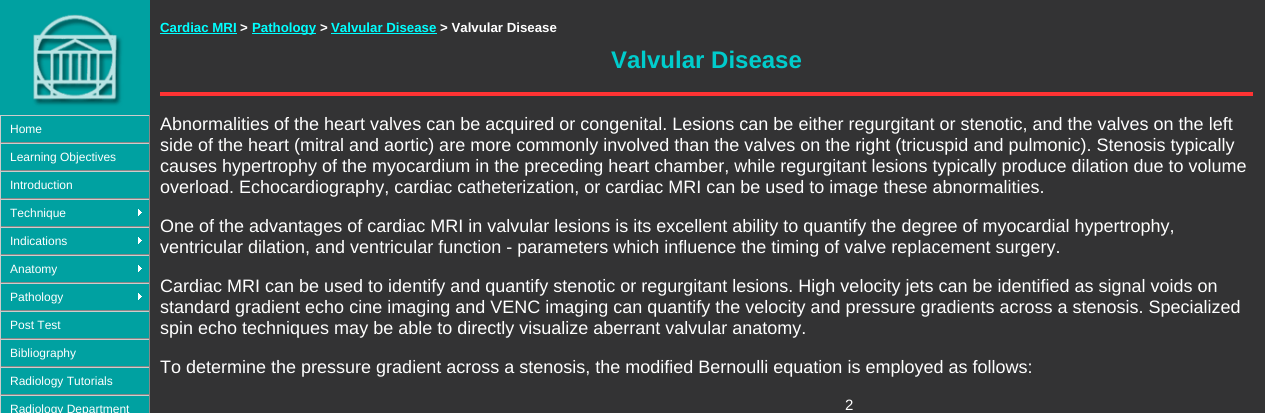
#include <cairo/cairo.h>
#include <math.h>
#include <stddef.h>


static void draw_image(cairo_t *cr, const char *path, double x, double y, double w, double h) {
  cairo_surface_t *image = cairo_image_surface_create_from_png(path);
  cairo_save(cr);
  cairo_set_source_surface(cr, image, x, y);
  cairo_rectangle(cr, x, y, w, h);
  cairo_fill(cr);
  cairo_restore(cr);
  cairo_surface_destroy(image);
}

static void draw(cairo_t *cr) {
  cairo_set_source_rgb(cr, 51 / 255.0, 51 / 255.0, 52 / 255.0);
  cairo_paint(cr);
  draw_image(cr, "images/1.png", 0, 0, 150, 115);
  cairo_set_source_rgb(cr, 0, 161 / 255.0, 161 / 255.0);
  cairo_rectangle(cr, 1, 116, 148, 26);
  cairo_fill(cr);
  cairo_set_source_rgb(cr, 204 / 255.0, 204 / 255.0, 204 / 255.0);
  cairo_rectangle(cr, 0, 115, 150, 1);
  cairo_fill(cr);
  cairo_set_source_rgb(cr, 136 / 255.0, 136 / 255.0, 136 / 255.0);
  cairo_rectangle(cr, 149, 115, 1, 28);
  cairo_fill(cr);
  cairo_rectangle(cr, 0, 142, 150, 1);
  cairo_fill(cr);
  cairo_set_source_rgb(cr, 204 / 255.0, 204 / 255.0, 204 / 255.0);
  cairo_rectangle(cr, 0, 115, 1, 28);
  cairo_fill(cr);
  cairo_set_source_rgb(cr, 0, 161 / 255.0, 161 / 255.0);
  cairo_rectangle(cr, 1, 144, 148, 26);
  cairo_fill(cr);
  cairo_set_source_rgb(cr, 204 / 255.0, 204 / 255.0, 204 / 255.0);
  cairo_rectangle(cr, 0, 143, 150, 1);
  cairo_fill(cr);
  cairo_set_source_rgb(cr, 136 / 255.0, 136 / 255.0, 136 / 255.0);
  cairo_rectangle(cr, 149, 143, 1, 28);
  cairo_fill(cr);
  cairo_rectangle(cr, 0, 170, 150, 1);
  cairo_fill(cr);
  cairo_set_source_rgb(cr, 204 / 255.0, 204 / 255.0, 204 / 255.0);
  cairo_rectangle(cr, 0, 143, 1, 28);
  cairo_fill(cr);
  cairo_set_source_rgb(cr, 0, 161 / 255.0, 161 / 255.0);
  cairo_rectangle(cr, 1, 172, 148, 26);
  cairo_fill(cr);
  cairo_set_source_rgb(cr, 204 / 255.0, 204 / 255.0, 204 / 255.0);
  cairo_rectangle(cr, 0, 171, 150, 1);
  cairo_fill(cr);
  cairo_set_source_rgb(cr, 136 / 255.0, 136 / 255.0, 136 / 255.0);
  cairo_rectangle(cr, 149, 171, 1, 28);
  cairo_fill(cr);
  cairo_rectangle(cr, 0, 198, 150, 1);
  cairo_fill(cr);
  cairo_set_source_rgb(cr, 204 / 255.0, 204 / 255.0, 204 / 255.0);
  cairo_rectangle(cr, 0, 171, 1, 28);
  cairo_fill(cr);
  cairo_set_source_rgb(cr, 0, 161 / 255.0, 161 / 255.0);
  cairo_rectangle(cr, 1, 200, 148, 26);
  cairo_fill(cr);
  draw_image(cr, "images/2.png", 138, 209, 4, 7);
  cairo_set_source_rgb(cr, 204 / 255.0, 204 / 255.0, 204 / 255.0);
  cairo_rectangle(cr, 0, 199, 150, 1);
  cairo_fill(cr);
  cairo_set_source_rgb(cr, 136 / 255.0, 136 / 255.0, 136 / 255.0);
  cairo_rectangle(cr, 149, 199, 1, 28);
  cairo_fill(cr);
  cairo_rectangle(cr, 0, 226, 150, 1);
  cairo_fill(cr);
  cairo_set_source_rgb(cr, 204 / 255.0, 204 / 255.0, 204 / 255.0);
  cairo_rectangle(cr, 0, 199, 1, 28);
  cairo_fill(cr);
  cairo_set_source_rgb(cr, 0, 161 / 255.0, 161 / 255.0);
  cairo_rectangle(cr, 1, 228, 148, 26);
  cairo_fill(cr);
  draw_image(cr, "images/2.png", 138, 237, 4, 7);
  cairo_set_source_rgb(cr, 204 / 255.0, 204 / 255.0, 204 / 255.0);
  cairo_rectangle(cr, 0, 227, 150, 1);
  cairo_fill(cr);
  cairo_set_source_rgb(cr, 136 / 255.0, 136 / 255.0, 136 / 255.0);
  cairo_rectangle(cr, 149, 227, 1, 28);
  cairo_fill(cr);
  cairo_rectangle(cr, 0, 254, 150, 1);
  cairo_fill(cr);
  cairo_set_source_rgb(cr, 204 / 255.0, 204 / 255.0, 204 / 255.0);
  cairo_rectangle(cr, 0, 227, 1, 28);
  cairo_fill(cr);
  cairo_set_source_rgb(cr, 0, 161 / 255.0, 161 / 255.0);
  cairo_rectangle(cr, 1, 256, 148, 26);
  cairo_fill(cr);
  draw_image(cr, "images/2.png", 138, 265, 4, 7);
  cairo_set_source_rgb(cr, 204 / 255.0, 204 / 255.0, 204 / 255.0);
  cairo_rectangle(cr, 0, 255, 150, 1);
  cairo_fill(cr);
  cairo_set_source_rgb(cr, 136 / 255.0, 136 / 255.0, 136 / 255.0);
  cairo_rectangle(cr, 149, 255, 1, 28);
  cairo_fill(cr);
  cairo_rectangle(cr, 0, 282, 150, 1);
  cairo_fill(cr);
  cairo_set_source_rgb(cr, 204 / 255.0, 204 / 255.0, 204 / 255.0);
  cairo_rectangle(cr, 0, 255, 1, 28);
  cairo_fill(cr);
  cairo_set_source_rgb(cr, 0, 161 / 255.0, 161 / 255.0);
  cairo_rectangle(cr, 1, 284, 148, 26);
  cairo_fill(cr);
  draw_image(cr, "images/2.png", 138, 293, 4, 7);
  cairo_set_source_rgb(cr, 204 / 255.0, 204 / 255.0, 204 / 255.0);
  cairo_rectangle(cr, 0, 283, 150, 1);
  cairo_fill(cr);
  cairo_set_source_rgb(cr, 136 / 255.0, 136 / 255.0, 136 / 255.0);
  cairo_rectangle(cr, 149, 283, 1, 28);
  cairo_fill(cr);
  cairo_rectangle(cr, 0, 310, 150, 1);
  cairo_fill(cr);
  cairo_set_source_rgb(cr, 204 / 255.0, 204 / 255.0, 204 / 255.0);
  cairo_rectangle(cr, 0, 283, 1, 28);
  cairo_fill(cr);
  cairo_set_source_rgb(cr, 0, 161 / 255.0, 161 / 255.0);
  cairo_rectangle(cr, 1, 312, 148, 26);
  cairo_fill(cr);
  cairo_set_source_rgb(cr, 204 / 255.0, 204 / 255.0, 204 / 255.0);
  cairo_rectangle(cr, 0, 311, 150, 1);
  cairo_fill(cr);
  cairo_set_source_rgb(cr, 136 / 255.0, 136 / 255.0, 136 / 255.0);
  cairo_rectangle(cr, 149, 311, 1, 28);
  cairo_fill(cr);
  cairo_rectangle(cr, 0, 338, 150, 1);
  cairo_fill(cr);
  cairo_set_source_rgb(cr, 204 / 255.0, 204 / 255.0, 204 / 255.0);
  cairo_rectangle(cr, 0, 311, 1, 28);
  cairo_fill(cr);
  cairo_set_source_rgb(cr, 0, 161 / 255.0, 161 / 255.0);
  cairo_rectangle(cr, 1, 340, 148, 26);
  cairo_fill(cr);
  cairo_set_source_rgb(cr, 204 / 255.0, 204 / 255.0, 204 / 255.0);
  cairo_rectangle(cr, 0, 339, 150, 1);
  cairo_fill(cr);
  cairo_set_source_rgb(cr, 136 / 255.0, 136 / 255.0, 136 / 255.0);
  cairo_rectangle(cr, 149, 339, 1, 28);
  cairo_fill(cr);
  cairo_rectangle(cr, 0, 366, 150, 1);
  cairo_fill(cr);
  cairo_set_source_rgb(cr, 204 / 255.0, 204 / 255.0, 204 / 255.0);
  cairo_rectangle(cr, 0, 339, 1, 28);
  cairo_fill(cr);
  cairo_set_source_rgb(cr, 0, 161 / 255.0, 161 / 255.0);
  cairo_rectangle(cr, 1, 368, 148, 26);
  cairo_fill(cr);
  cairo_set_source_rgb(cr, 204 / 255.0, 204 / 255.0, 204 / 255.0);
  cairo_rectangle(cr, 0, 367, 150, 1);
  cairo_fill(cr);
  cairo_set_source_rgb(cr, 136 / 255.0, 136 / 255.0, 136 / 255.0);
  cairo_rectangle(cr, 149, 367, 1, 28);
  cairo_fill(cr);
  cairo_rectangle(cr, 0, 394, 150, 1);
  cairo_fill(cr);
  cairo_set_source_rgb(cr, 204 / 255.0, 204 / 255.0, 204 / 255.0);
  cairo_rectangle(cr, 0, 367, 1, 28);
  cairo_fill(cr);
  cairo_set_source_rgb(cr, 0, 161 / 255.0, 161 / 255.0);
  cairo_rectangle(cr, 1, 396, 148, 17);
  cairo_fill(cr);
  cairo_set_source_rgb(cr, 204 / 255.0, 204 / 255.0, 204 / 255.0);
  cairo_rectangle(cr, 0, 395, 150, 1);
  cairo_fill(cr);
  cairo_set_source_rgb(cr, 136 / 255.0, 136 / 255.0, 136 / 255.0);
  cairo_rectangle(cr, 149, 395, 1, 18);
  cairo_fill(cr);
  cairo_set_source_rgb(cr, 204 / 255.0, 204 / 255.0, 204 / 255.0);
  cairo_rectangle(cr, 0, 395, 1, 18);
  cairo_fill(cr);
  cairo_set_source_rgb(cr, 0, 1, 1);
  cairo_rectangle(cr, 160, 33, 77, 1);
  cairo_fill(cr);
  cairo_rectangle(cr, 252, 33, 64, 1);
  cairo_fill(cr);
  cairo_rectangle(cr, 331, 33, 106, 1);
  cairo_fill(cr);
  cairo_set_source_rgb(cr, 1, 51 / 255.0, 51 / 255.0);
  cairo_rectangle(cr, 160, 92, 1093, 4);
  cairo_fill(cr);
  cairo_select_font_face(cr, "Liberation Sans", CAIRO_FONT_SLANT_NORMAL, CAIRO_FONT_WEIGHT_NORMAL);
  cairo_set_font_size(cr, 12);
  cairo_set_source_rgb(cr, 1, 1, 1);
  cairo_move_to(cr, 10, 133);
  cairo_show_text(cr, "Home");
  cairo_move_to(cr, 10, 161);
  cairo_show_text(cr, "Learning Objectives");
  cairo_move_to(cr, 10, 189);
  cairo_show_text(cr, "Introduction");
  cairo_move_to(cr, 10, 217);
  cairo_show_text(cr, "Technique");
  cairo_move_to(cr, 10, 245);
  cairo_show_text(cr, "Indications");
  cairo_move_to(cr, 10, 273);
  cairo_show_text(cr, "Anatomy");
  cairo_move_to(cr, 10, 301);
  cairo_show_text(cr, "Pathology");
  cairo_move_to(cr, 10, 329);
  cairo_show_text(cr, "Post Test");
  cairo_move_to(cr, 10, 357);
  cairo_show_text(cr, "Bibliography");
  cairo_move_to(cr, 10, 385);
  cairo_show_text(cr, "Radiology Tutorials");
  cairo_move_to(cr, 10, 413);
  cairo_show_text(cr, "Radiology Department");
  cairo_select_font_face(cr, "Liberation Sans", CAIRO_FONT_SLANT_NORMAL, CAIRO_FONT_WEIGHT_BOLD);
  cairo_set_font_size(cr, 13.25);
  cairo_set_source_rgb(cr, 0, 1, 1);
  cairo_move_to(cr, 160, 32);
  cairo_show_text(cr, "Cardiac MRI");
  cairo_set_source_rgb(cr, 1, 1, 1);
  cairo_move_to(cr, 240, 32);
  cairo_show_text(cr, ">");
  cairo_set_source_rgb(cr, 0, 1, 1);
  cairo_move_to(cr, 252, 32);
  cairo_show_text(cr, "Pathology");
  cairo_set_source_rgb(cr, 1, 1, 1);
  cairo_move_to(cr, 320, 32);
  cairo_show_text(cr, ">");
  cairo_set_source_rgb(cr, 0, 1, 1);
  cairo_move_to(cr, 331, 32);
  cairo_show_text(cr, "Valvular Disease");
  cairo_set_source_rgb(cr, 1, 1, 1);
  cairo_move_to(cr, 440, 32);
  cairo_show_text(cr, "> Valvular Disease");
  cairo_set_font_size(cr, 24);
  cairo_set_source_rgb(cr, 0, 204 / 255.0, 204 / 255.0);
  cairo_move_to(cr, 611, 68);
  cairo_show_text(cr, "Valvular Disease");
  cairo_select_font_face(cr, "Liberation Sans", CAIRO_FONT_SLANT_NORMAL, CAIRO_FONT_WEIGHT_NORMAL);
  cairo_set_font_size(cr, 18);
  cairo_set_source_rgb(cr, 1, 1, 1);
  cairo_move_to(cr, 160, 130);
  cairo_show_text(cr, "Abnormalities of the heart valves can be acquired or congenital. Lesions can be either regurgitant or stenotic, and the valves on the left");
  cairo_move_to(cr, 160, 151);
  cairo_show_text(cr, "side of the heart (mitral and aortic) are more commonly involved than the valves on the right (tricuspid and pulmonic). Stenosis typically");
  cairo_move_to(cr, 160, 172);
  cairo_show_text(cr, "causes hypertrophy of the myocardium in the preceding heart chamber, while regurgitant lesions typically produce dilation due to volume");
  cairo_move_to(cr, 160, 193);
  cairo_show_text(cr, "overload. Echocardiography, cardiac catheterization, or cardiac MRI can be used to image these abnormalities.");
  cairo_move_to(cr, 160, 232);
  cairo_show_text(cr, "One of the advantages of cardiac MRI in valvular lesions is its excellent ability to quantify the degree of myocardial hypertrophy,");
  cairo_move_to(cr, 160, 253);
  cairo_show_text(cr, "ventricular dilation, and ventricular function - parameters which influence the timing of valve replacement surgery.");
  cairo_move_to(cr, 160, 292);
  cairo_show_text(cr, "Cardiac MRI can be used to identify and quantify stenotic or regurgitant lesions. High velocity jets can be identified as signal voids on");
  cairo_move_to(cr, 160, 313);
  cairo_show_text(cr, "standard gradient echo cine imaging and VENC imaging can quantify the velocity and pressure gradients across a stenosis. Specialized");
  cairo_move_to(cr, 160, 334);
  cairo_show_text(cr, "spin echo techniques may be able to directly visualize aberrant valvular anatomy.");
  cairo_move_to(cr, 160, 373);
  cairo_show_text(cr, "To determine the pressure gradient across a stenosis, the modified Bernoulli equation is employed as follows:");
  cairo_set_font_size(cr, 15);
  cairo_move_to(cr, 845, 410);
  cairo_show_text(cr, "2");
}

int main(void) {
  cairo_surface_t *surface = cairo_image_surface_create(CAIRO_FORMAT_RGB24, 1265, 413);
  cairo_t *cr = cairo_create(surface);
  cairo_font_options_t *options = cairo_font_options_create();
  cairo_font_options_set_hint_metrics(options, CAIRO_HINT_METRICS_OFF);
  cairo_font_options_set_hint_style(options, CAIRO_HINT_STYLE_NONE);
  cairo_set_font_options(cr, options);
  cairo_set_miter_limit(cr, 4);
  draw(cr);
  cairo_surface_write_to_png(surface, "out.png");
  cairo_font_options_destroy(options);
  cairo_destroy(cr);
  cairo_surface_destroy(surface);
  return 0;
}
